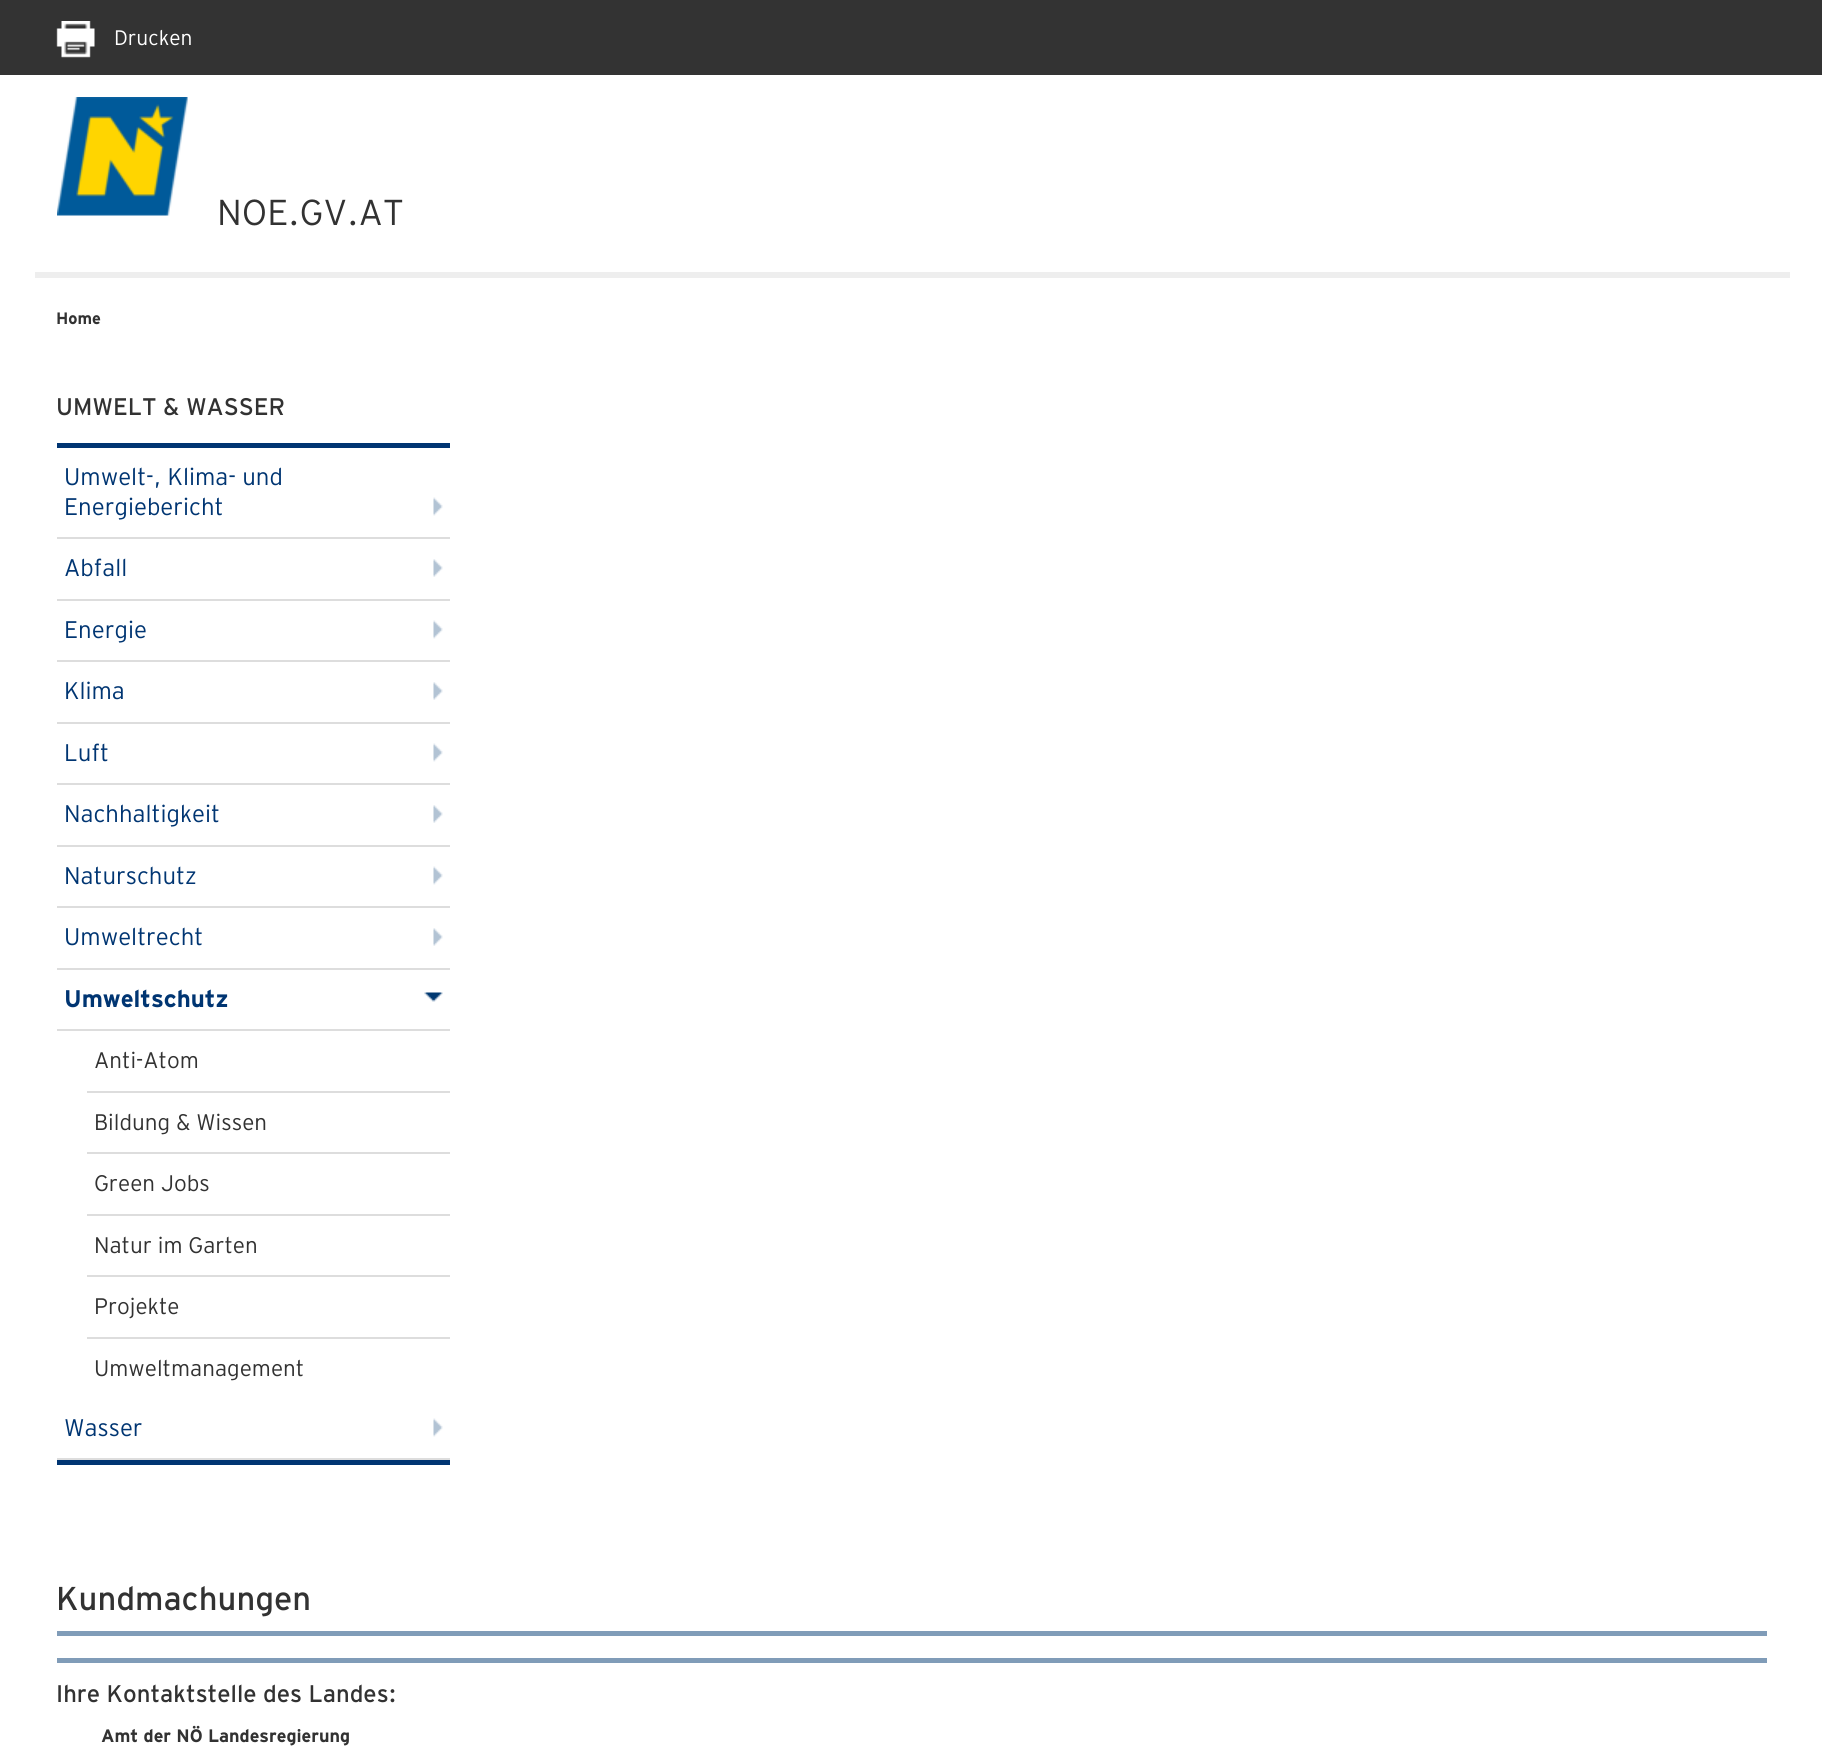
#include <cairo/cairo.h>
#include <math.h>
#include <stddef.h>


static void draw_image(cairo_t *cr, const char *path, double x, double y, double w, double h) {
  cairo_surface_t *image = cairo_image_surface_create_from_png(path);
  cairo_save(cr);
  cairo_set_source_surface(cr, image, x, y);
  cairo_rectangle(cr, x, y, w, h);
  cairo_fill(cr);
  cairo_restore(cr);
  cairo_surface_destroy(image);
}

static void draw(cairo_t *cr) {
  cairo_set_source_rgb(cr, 1, 1, 1);
  cairo_paint(cr);
  cairo_set_source_rgb(cr, 51 / 255.0, 51 / 255.0, 51 / 255.0);
  cairo_rectangle(cr, 0, 0, 1822, 75);
  cairo_fill(cr);
  draw_image(cr, "images/1.png", 56, 21, 39, 37);
  cairo_set_source_rgb(cr, 238 / 255.0, 238 / 255.0, 238 / 255.0);
  cairo_rectangle(cr, 35, 272, 1755, 6);
  cairo_fill(cr);
  draw_image(cr, "images/2.png", 57, 97, 131, 119);
  cairo_set_source_rgb(cr, 0, 53 / 255.0, 114 / 255.0);
  cairo_rectangle(cr, 57, 443, 393, 5);
  cairo_fill(cr);
  cairo_rectangle(cr, 57, 1460, 393, 5);
  cairo_fill(cr);
  cairo_set_source_rgb(cr, 221 / 255.0, 221 / 255.0, 221 / 255.0);
  cairo_rectangle(cr, 57, 537, 393, 2);
  cairo_fill(cr);
  draw_image(cr, "images/3.png", 433, 497, 10, 19);
  cairo_rectangle(cr, 57, 599, 393, 2);
  cairo_fill(cr);
  draw_image(cr, "images/4.png", 433, 559, 10, 18);
  cairo_rectangle(cr, 57, 660, 393, 2);
  cairo_fill(cr);
  draw_image(cr, "images/3.png", 433, 620, 10, 19);
  cairo_rectangle(cr, 57, 722, 393, 2);
  cairo_fill(cr);
  draw_image(cr, "images/4.png", 433, 682, 10, 18);
  cairo_rectangle(cr, 57, 783, 393, 2);
  cairo_fill(cr);
  draw_image(cr, "images/3.png", 433, 743, 10, 19);
  cairo_rectangle(cr, 57, 845, 393, 2);
  cairo_fill(cr);
  draw_image(cr, "images/4.png", 433, 805, 10, 18);
  cairo_rectangle(cr, 57, 906, 393, 2);
  cairo_fill(cr);
  draw_image(cr, "images/3.png", 433, 866, 10, 19);
  cairo_rectangle(cr, 57, 968, 393, 2);
  cairo_fill(cr);
  draw_image(cr, "images/4.png", 433, 928, 10, 18);
  cairo_rectangle(cr, 57, 1029, 393, 2);
  cairo_fill(cr);
  draw_image(cr, "images/5.png", 424, 992, 19, 10);
  cairo_rectangle(cr, 87, 1091, 363, 2);
  cairo_fill(cr);
  cairo_rectangle(cr, 87, 1152, 363, 2);
  cairo_fill(cr);
  cairo_rectangle(cr, 87, 1214, 363, 2);
  cairo_fill(cr);
  cairo_rectangle(cr, 87, 1275, 363, 2);
  cairo_fill(cr);
  cairo_rectangle(cr, 87, 1337, 363, 2);
  cairo_fill(cr);
  cairo_rectangle(cr, 57, 1458, 393, 2);
  cairo_fill(cr);
  draw_image(cr, "images/3.png", 433, 1418, 10, 19);
  cairo_set_source_rgb(cr, 128 / 255.0, 156 / 255.0, 184 / 255.0);
  cairo_rectangle(cr, 57, 1631, 1710, 5);
  cairo_fill(cr);
  cairo_rectangle(cr, 57, 1658, 1710, 5);
  cairo_fill(cr);
  cairo_select_font_face(cr, "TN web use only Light", CAIRO_FONT_SLANT_NORMAL, CAIRO_FONT_WEIGHT_NORMAL);
  cairo_set_font_size(cr, 21);
  cairo_set_source_rgb(cr, 1, 1, 1);
  cairo_move_to(cr, 114, 45);
  cairo_show_text(cr, "Drucken");
  cairo_set_font_size(cr, 36);
  cairo_set_source_rgb(cr, 50 / 255.0, 50 / 255.0, 50 / 255.0);
  cairo_move_to(cr, 217, 225);
  cairo_show_text(cr, "NOE.GV.AT");
  cairo_select_font_face(cr, "TN web use only", CAIRO_FONT_SLANT_NORMAL, CAIRO_FONT_WEIGHT_BOLD);
  cairo_set_font_size(cr, 16.5);
  cairo_move_to(cr, 56, 324);
  cairo_show_text(cr, "Home");
  cairo_select_font_face(cr, "TN web use only", CAIRO_FONT_SLANT_NORMAL, CAIRO_FONT_WEIGHT_NORMAL);
  cairo_set_font_size(cr, 24);
  cairo_move_to(cr, 56, 415);
  cairo_show_text(cr, "UMWELT & WASSER");
  cairo_select_font_face(cr, "TN web use only Light", CAIRO_FONT_SLANT_NORMAL, CAIRO_FONT_WEIGHT_NORMAL);
  cairo_set_source_rgb(cr, 0, 53 / 255.0, 114 / 255.0);
  cairo_move_to(cr, 64, 485);
  cairo_show_text(cr, "Umwelt-, Klima- und");
  cairo_move_to(cr, 64, 515);
  cairo_show_text(cr, "Energiebericht");
  cairo_move_to(cr, 64, 576);
  cairo_show_text(cr, "Abfall");
  cairo_move_to(cr, 64, 638);
  cairo_show_text(cr, "Energie");
  cairo_move_to(cr, 64, 699);
  cairo_show_text(cr, "Klima");
  cairo_move_to(cr, 64, 761);
  cairo_show_text(cr, "Luft");
  cairo_move_to(cr, 64, 822);
  cairo_show_text(cr, "Nachhaltigkeit");
  cairo_move_to(cr, 64, 884);
  cairo_show_text(cr, "Naturschutz");
  cairo_move_to(cr, 64, 945);
  cairo_show_text(cr, "Umweltrecht");
  cairo_select_font_face(cr, "TN web use only", CAIRO_FONT_SLANT_NORMAL, CAIRO_FONT_WEIGHT_BOLD);
  cairo_move_to(cr, 64, 1007);
  cairo_show_text(cr, "Umweltschutz");
  cairo_select_font_face(cr, "TN web use only Light", CAIRO_FONT_SLANT_NORMAL, CAIRO_FONT_WEIGHT_NORMAL);
  cairo_set_font_size(cr, 22.5);
  cairo_set_source_rgb(cr, 50 / 255.0, 50 / 255.0, 50 / 255.0);
  cairo_move_to(cr, 94, 1068);
  cairo_show_text(cr, "Anti-Atom");
  cairo_move_to(cr, 94, 1130);
  cairo_show_text(cr, "Bildung & Wissen");
  cairo_move_to(cr, 94, 1191);
  cairo_show_text(cr, "Green Jobs");
  cairo_move_to(cr, 94, 1253);
  cairo_show_text(cr, "Natur im Garten");
  cairo_move_to(cr, 94, 1314);
  cairo_show_text(cr, "Projekte");
  cairo_move_to(cr, 94, 1376);
  cairo_show_text(cr, "Umweltmanagement");
  cairo_set_font_size(cr, 24);
  cairo_set_source_rgb(cr, 0, 53 / 255.0, 114 / 255.0);
  cairo_move_to(cr, 64, 1436);
  cairo_show_text(cr, "Wasser");
  cairo_select_font_face(cr, "TN web use only", CAIRO_FONT_SLANT_NORMAL, CAIRO_FONT_WEIGHT_NORMAL);
  cairo_set_font_size(cr, 33);
  cairo_set_source_rgb(cr, 50 / 255.0, 50 / 255.0, 50 / 255.0);
  cairo_move_to(cr, 56, 1610);
  cairo_show_text(cr, "Kundmachungen");
  cairo_set_font_size(cr, 24);
  cairo_move_to(cr, 56, 1702);
  cairo_show_text(cr, "Ihre Kontaktstelle des Landes:");
  cairo_select_font_face(cr, "TN web use only", CAIRO_FONT_SLANT_NORMAL, CAIRO_FONT_WEIGHT_BOLD);
  cairo_set_font_size(cr, 18);
  cairo_move_to(cr, 101, 1742);
  cairo_show_text(cr, "Amt der NÖ Landesregierung");
}

int main(void) {
  cairo_surface_t *surface = cairo_image_surface_create(CAIRO_FORMAT_RGB24, 1822, 1758);
  cairo_t *cr = cairo_create(surface);
  cairo_font_options_t *options = cairo_font_options_create();
  cairo_font_options_set_hint_metrics(options, CAIRO_HINT_METRICS_OFF);
  cairo_font_options_set_hint_style(options, CAIRO_HINT_STYLE_NONE);
  cairo_set_font_options(cr, options);
  cairo_set_miter_limit(cr, 4);
  draw(cr);
  cairo_surface_write_to_png(surface, "out.png");
  cairo_font_options_destroy(options);
  cairo_destroy(cr);
  cairo_surface_destroy(surface);
  return 0;
}
